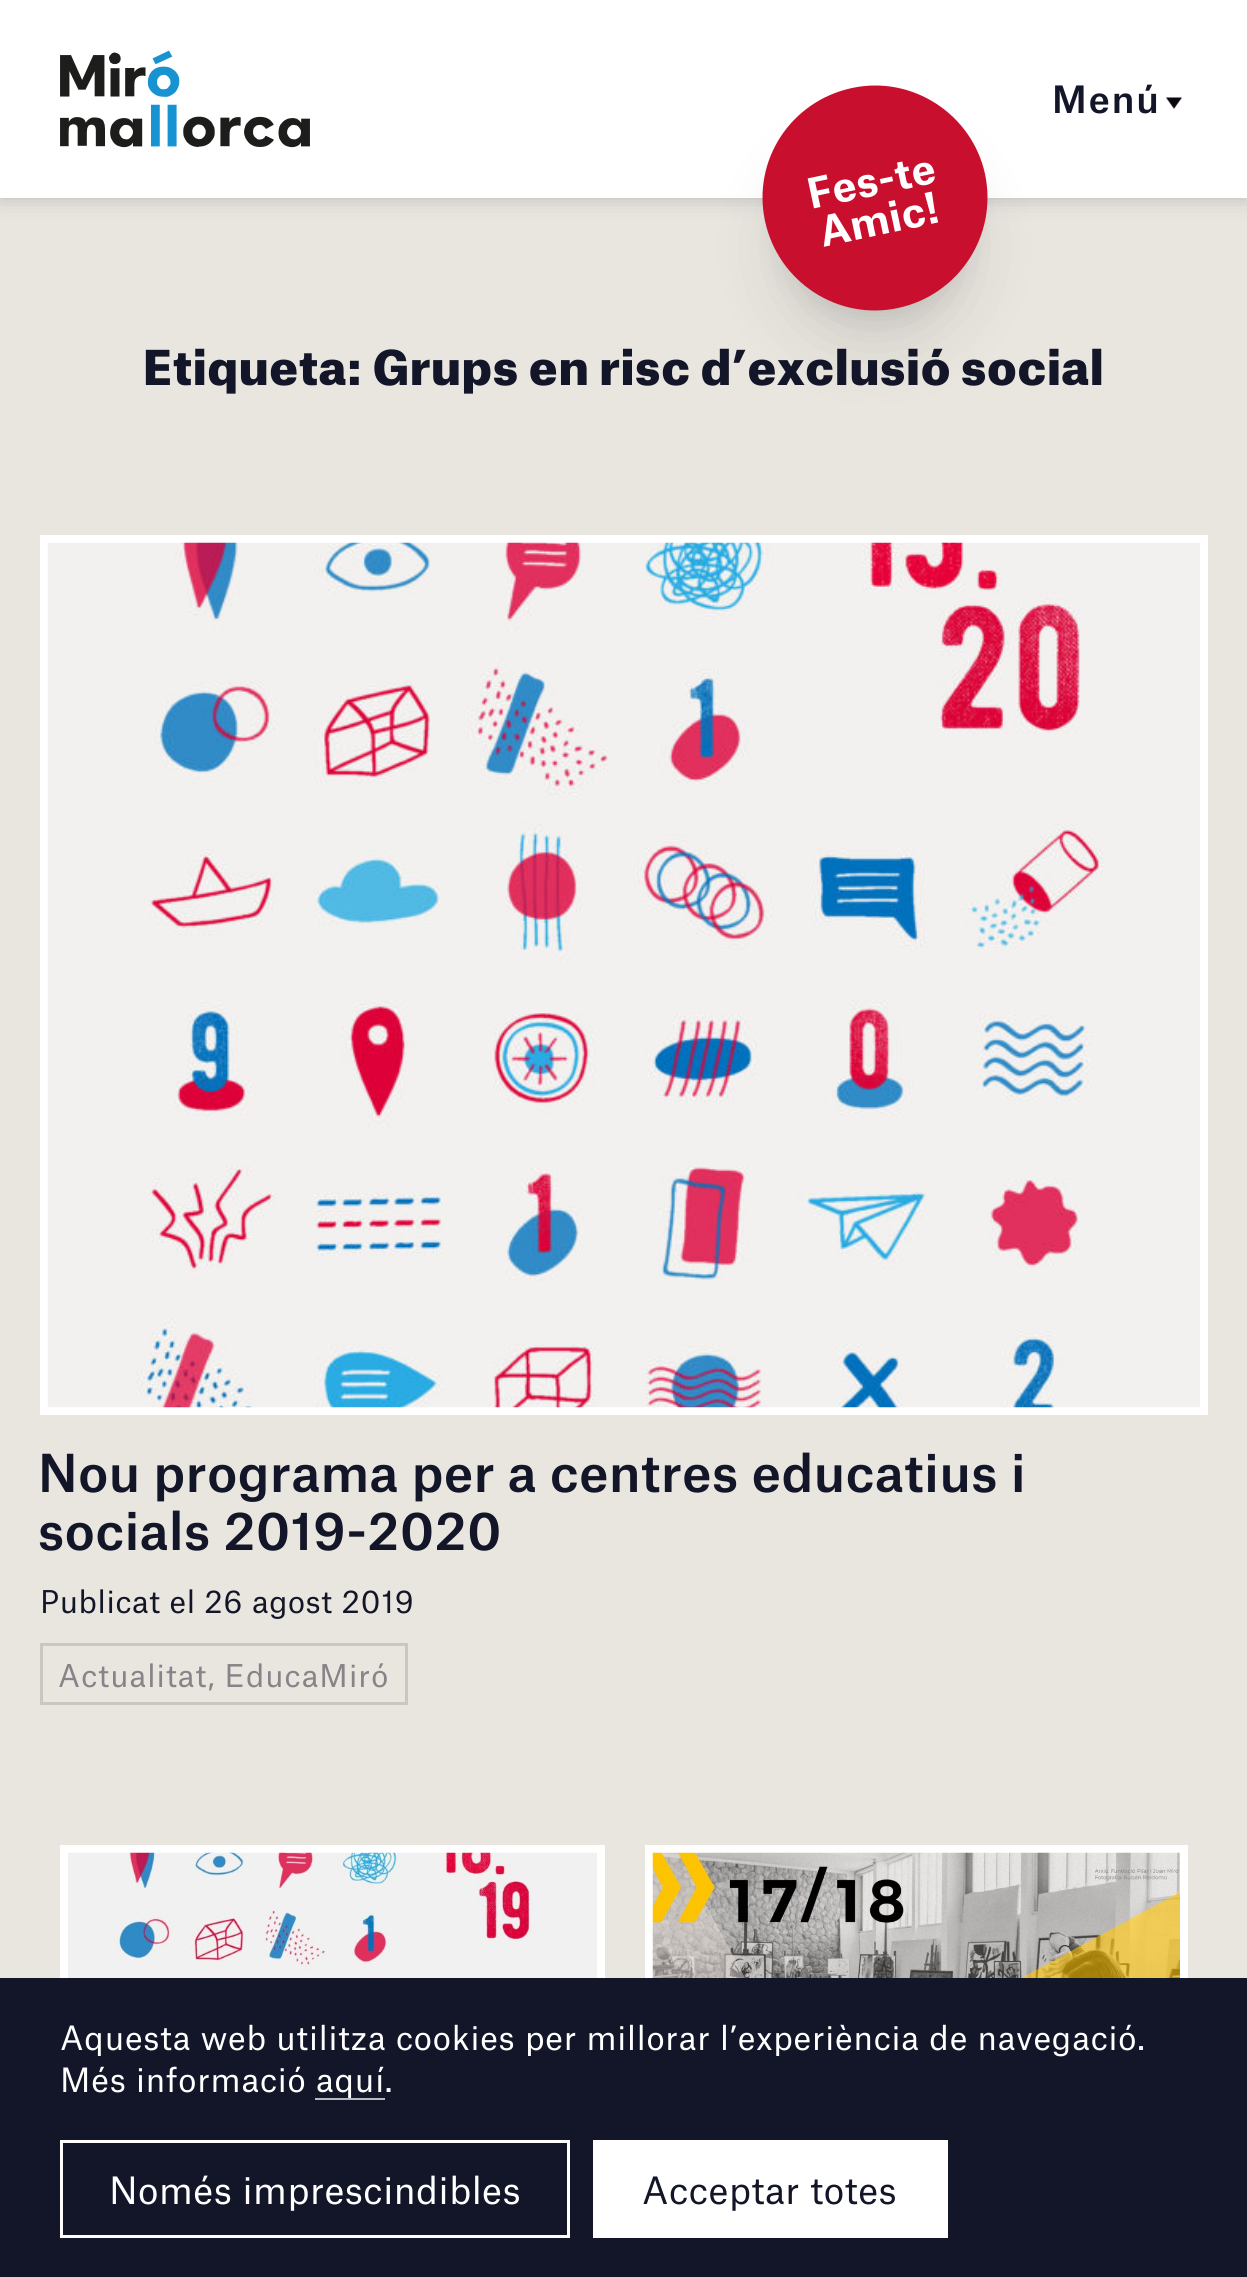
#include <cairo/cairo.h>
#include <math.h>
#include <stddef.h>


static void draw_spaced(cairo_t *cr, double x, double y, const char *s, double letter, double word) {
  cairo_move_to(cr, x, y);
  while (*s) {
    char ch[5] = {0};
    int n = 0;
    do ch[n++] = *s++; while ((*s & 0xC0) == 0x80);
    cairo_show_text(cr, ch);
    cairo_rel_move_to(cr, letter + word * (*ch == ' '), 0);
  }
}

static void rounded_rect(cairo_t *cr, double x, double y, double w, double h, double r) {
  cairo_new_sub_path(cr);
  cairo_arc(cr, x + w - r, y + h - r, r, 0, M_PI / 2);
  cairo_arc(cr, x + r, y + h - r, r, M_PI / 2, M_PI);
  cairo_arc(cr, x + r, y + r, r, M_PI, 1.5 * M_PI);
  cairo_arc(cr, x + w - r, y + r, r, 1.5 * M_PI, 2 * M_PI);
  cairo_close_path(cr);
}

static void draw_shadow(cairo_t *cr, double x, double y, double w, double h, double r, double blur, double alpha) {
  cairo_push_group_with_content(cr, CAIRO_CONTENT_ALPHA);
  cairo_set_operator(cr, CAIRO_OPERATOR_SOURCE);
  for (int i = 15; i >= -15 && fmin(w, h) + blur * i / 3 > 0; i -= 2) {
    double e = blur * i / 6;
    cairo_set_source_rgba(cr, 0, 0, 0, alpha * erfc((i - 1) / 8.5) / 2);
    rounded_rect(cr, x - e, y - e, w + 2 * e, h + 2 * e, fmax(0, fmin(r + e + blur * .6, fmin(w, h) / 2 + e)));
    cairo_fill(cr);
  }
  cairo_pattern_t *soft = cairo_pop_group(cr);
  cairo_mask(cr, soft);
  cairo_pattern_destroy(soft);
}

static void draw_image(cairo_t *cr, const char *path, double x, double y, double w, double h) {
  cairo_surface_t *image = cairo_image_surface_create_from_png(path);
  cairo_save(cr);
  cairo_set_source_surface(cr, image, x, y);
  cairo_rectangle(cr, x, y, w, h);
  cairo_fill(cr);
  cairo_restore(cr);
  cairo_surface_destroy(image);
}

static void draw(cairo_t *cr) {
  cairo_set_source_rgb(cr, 233 / 255.0, 230 / 255.0, 224 / 255.0);
  cairo_paint(cr);
  cairo_set_source_rgb(cr, 19 / 255.0, 22 / 255.0, 40 / 255.0);
  draw_shadow(cr, 0, 0, 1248, 198, 0, 10, 0.22);
  cairo_set_source_rgb(cr, 1, 1, 1);
  cairo_rectangle(cr, 0, 0, 1247, 198);
  cairo_fill(cr);
  draw_image(cr, "images/1.png", 60, 50, 250, 98);
  draw_image(cr, "images/2.png", 1166, 97, 16, 12);
  cairo_set_source_rgb(cr, 0, 0, 0);
  draw_shadow(cr, 778, 120, 195, 195, 97.5, 12.5, 0.1);
  draw_shadow(cr, 775, 148, 200, 200, 100, 31.5, 0.1);
  cairo_set_source_rgb(cr, 200 / 255.0, 16 / 255.0, 46 / 255.0);
  cairo_new_path(cr);
  cairo_move_to(cr, 852, 88);
  cairo_curve_to(cr, 912, 75, 972, 114, 985, 174);
  cairo_curve_to(cr, 998, 235, 959, 295, 898, 308);
  cairo_curve_to(cr, 838, 321, 778, 282, 765, 221);
  cairo_curve_to(cr, 752, 160, 791, 101, 852, 88);
  cairo_close_path(cr);
  cairo_fill(cr);
  cairo_rectangle(cr, 44, 539, 1160, 872);
  cairo_set_source_rgb(cr, 1, 1, 1);
  cairo_set_line_width(cr, 8);
  cairo_stroke(cr);
  draw_image(cr, "images/3.png", 47, 542, 1153, 866);
  cairo_rectangle(cr, 41.5, 1644.5, 365, 59);
  cairo_set_source_rgb(cr, 201 / 255.0, 199 / 255.0, 196 / 255.0);
  cairo_set_line_width(cr, 3);
  cairo_stroke(cr);
  cairo_rectangle(cr, 64, 1849, 537, 405);
  cairo_set_source_rgb(cr, 1, 1, 1);
  cairo_set_line_width(cr, 8);
  cairo_stroke(cr);
  draw_image(cr, "images/4.png", 68, 1852, 529, 126);
  cairo_rectangle(cr, 649, 1849, 535, 405);
  cairo_stroke(cr);
  draw_image(cr, "images/5.png", 652, 1852, 528, 126);
  cairo_set_source_rgb(cr, 19 / 255.0, 22 / 255.0, 40 / 255.0);
  cairo_rectangle(cr, 0, 1978, 1247, 299);
  cairo_fill(cr);
  cairo_set_source_rgb(cr, 184 / 255.0, 185 / 255.0, 191 / 255.0);
  cairo_rectangle(cr, 315, 2098, 70, 2);
  cairo_fill(cr);
  cairo_rectangle(cr, 61.5, 2141.5, 507, 95);
  cairo_set_source_rgb(cr, 1, 1, 1);
  cairo_set_line_width(cr, 3);
  cairo_stroke(cr);
  cairo_rectangle(cr, 593, 2140, 355, 98);
  cairo_fill(cr);
  cairo_select_font_face(cr, "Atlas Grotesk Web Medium", CAIRO_FONT_SLANT_NORMAL, CAIRO_FONT_WEIGHT_NORMAL);
  cairo_set_font_size(cr, 36);
  cairo_set_source_rgb(cr, 19 / 255.0, 22 / 255.0, 40 / 255.0);
  draw_spaced(cr, 1052, 113, "Menú", 2, 0);
  cairo_select_font_face(cr, "Atlas Grotesk Web", CAIRO_FONT_SLANT_NORMAL, CAIRO_FONT_WEIGHT_BOLD);
  cairo_set_font_size(cr, 40);
  cairo_set_source_rgb(cr, 1, 1, 1);
  cairo_save(cr);
  cairo_translate(cr, 811, 209);
  cairo_rotate(cr, -12 * M_PI / 180);
  draw_spaced(cr, 0, 0, "Fes-te", 0.6, 0);
  cairo_restore(cr);
  cairo_save(cr);
  cairo_translate(cr, 823, 247);
  cairo_rotate(cr, -12 * M_PI / 180);
  draw_spaced(cr, 0, 0, "Amic!", 0.6, 0);
  cairo_restore(cr);
  cairo_select_font_face(cr, "Atlas Grotesk Web Black", CAIRO_FONT_SLANT_NORMAL, CAIRO_FONT_WEIGHT_NORMAL);
  cairo_set_font_size(cr, 46);
  cairo_set_source_rgb(cr, 19 / 255.0, 22 / 255.0, 40 / 255.0);
  draw_spaced(cr, 143, 385, "Etiqueta: Grups en risc d’exclusió social", 0.6, 0);
  cairo_select_font_face(cr, "Atlas Grotesk Web Medium", CAIRO_FONT_SLANT_NORMAL, CAIRO_FONT_WEIGHT_NORMAL);
  cairo_set_font_size(cr, 50);
  draw_spaced(cr, 38, 1492, "Nou programa per a centres educatius i", 0.6, 0);
  draw_spaced(cr, 38, 1550, "socials 2019-2020", 0.6, 0);
  cairo_select_font_face(cr, "Atlas Grotesk Web", CAIRO_FONT_SLANT_NORMAL, CAIRO_FONT_WEIGHT_NORMAL);
  cairo_set_font_size(cr, 30);
  draw_spaced(cr, 40, 1613, "Publicat el 26 agost 2019", 0.6, 0);
  cairo_set_source_rgb(cr, 134 / 255.0, 132 / 255.0, 136 / 255.0);
  draw_spaced(cr, 58, 1687, "Actualitat, EducaMiró", 1.05, 0);
  cairo_set_font_size(cr, 32);
  cairo_set_source_rgb(cr, 1, 1, 1);
  draw_spaced(cr, 60, 2050, "Aquesta web utilitza cookies per millorar l’experiència de navegació.", 0.8, 0);
  draw_spaced(cr, 60, 2092, "Més informació aquí.", 0.8, 0);
  cairo_set_font_size(cr, 36);
  draw_spaced(cr, 109, 2204, "Només imprescindibles", 0.5, 0);
  cairo_set_source_rgb(cr, 19 / 255.0, 22 / 255.0, 40 / 255.0);
  draw_spaced(cr, 642, 2204, "Acceptar totes", 0.5, 0);
}

int main(void) {
  cairo_surface_t *surface = cairo_image_surface_create(CAIRO_FORMAT_RGB24, 1247, 2277);
  cairo_t *cr = cairo_create(surface);
  cairo_font_options_t *options = cairo_font_options_create();
  cairo_font_options_set_hint_metrics(options, CAIRO_HINT_METRICS_OFF);
  cairo_font_options_set_hint_style(options, CAIRO_HINT_STYLE_NONE);
  cairo_set_font_options(cr, options);
  cairo_set_miter_limit(cr, 4);
  draw(cr);
  cairo_surface_write_to_png(surface, "out.png");
  cairo_font_options_destroy(options);
  cairo_destroy(cr);
  cairo_surface_destroy(surface);
  return 0;
}
